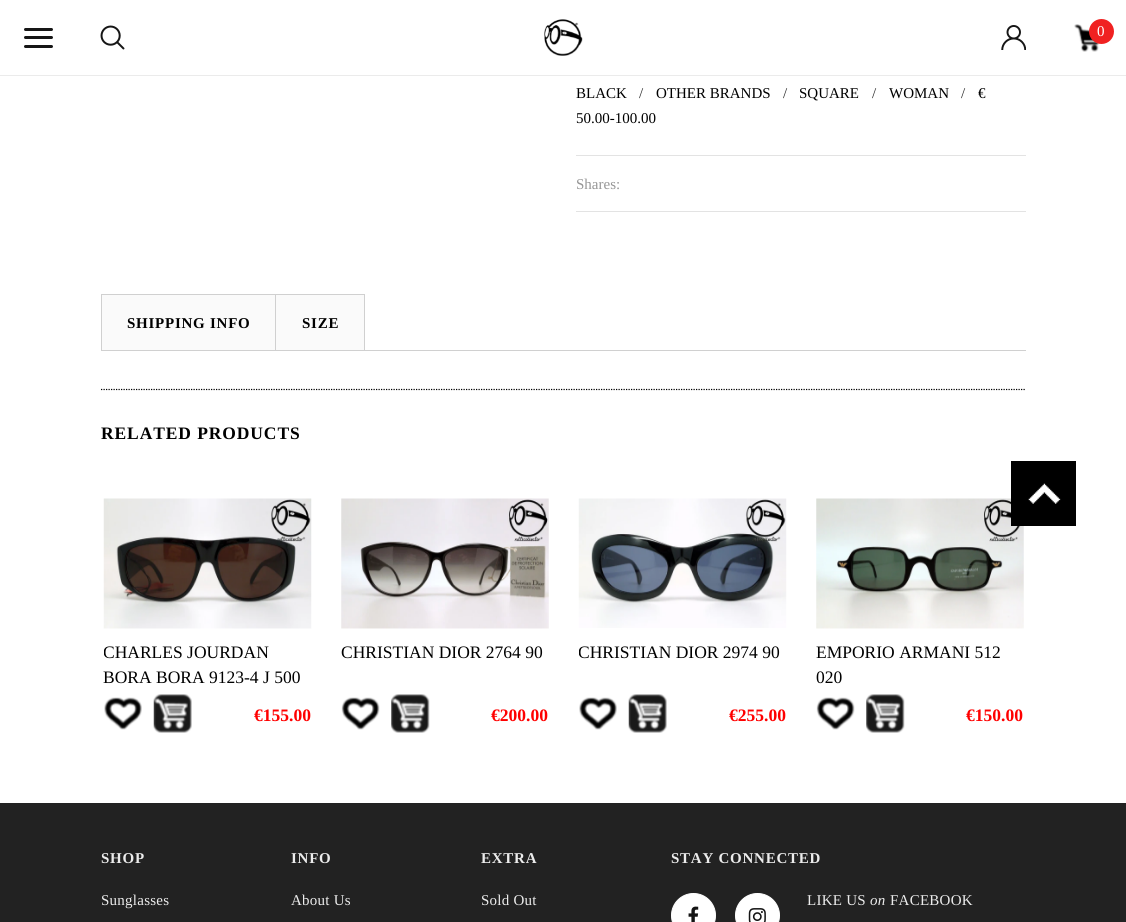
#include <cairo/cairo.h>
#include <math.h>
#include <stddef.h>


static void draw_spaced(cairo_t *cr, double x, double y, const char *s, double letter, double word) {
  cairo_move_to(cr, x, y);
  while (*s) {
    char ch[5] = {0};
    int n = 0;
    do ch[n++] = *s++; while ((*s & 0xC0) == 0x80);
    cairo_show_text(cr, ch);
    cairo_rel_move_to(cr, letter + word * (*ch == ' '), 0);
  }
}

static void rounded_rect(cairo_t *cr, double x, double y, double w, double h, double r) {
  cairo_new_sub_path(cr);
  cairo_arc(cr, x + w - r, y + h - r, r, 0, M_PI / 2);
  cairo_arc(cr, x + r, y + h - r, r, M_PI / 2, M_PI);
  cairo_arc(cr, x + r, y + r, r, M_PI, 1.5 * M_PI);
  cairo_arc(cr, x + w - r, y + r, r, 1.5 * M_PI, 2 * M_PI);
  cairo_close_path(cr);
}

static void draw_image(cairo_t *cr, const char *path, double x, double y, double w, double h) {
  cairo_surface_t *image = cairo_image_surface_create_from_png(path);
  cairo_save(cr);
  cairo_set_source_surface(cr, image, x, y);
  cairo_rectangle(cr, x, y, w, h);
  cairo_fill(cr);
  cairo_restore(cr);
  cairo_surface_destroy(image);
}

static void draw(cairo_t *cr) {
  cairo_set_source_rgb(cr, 1, 1, 1);
  cairo_paint(cr);
  cairo_set_source_rgb(cr, 235 / 255.0, 235 / 255.0, 235 / 255.0);
  cairo_rectangle(cr, 0, 75, 1126, 1);
  cairo_fill(cr);
  cairo_set_source_rgb(cr, 22 / 255.0, 22 / 255.0, 22 / 255.0);
  rounded_rect(cr, 24, 36, 29, 3, 1.5);
  cairo_fill(cr);
  rounded_rect(cr, 24, 28, 29, 3, 1.5);
  cairo_fill(cr);
  rounded_rect(cr, 24, 45, 29, 3, 1.5);
  cairo_fill(cr);
  draw_image(cr, "images/1.png", 100, 25, 25, 25);
  draw_image(cr, "images/2.png", 544, 19, 39, 37);
  draw_image(cr, "images/3.png", 1001, 25, 25, 25);
  draw_image(cr, "images/4.png", 1074, 24, 26, 28);
  cairo_set_source_rgb(cr, 240 / 255.0, 33 / 255.0, 33 / 255.0);
  cairo_arc(cr, 1101.5, 31.5, 12.5, 0, 2 * M_PI);
  cairo_fill(cr);
  cairo_set_source_rgb(cr, 227 / 255.0, 227 / 255.0, 227 / 255.0);
  cairo_rectangle(cr, 576, 155, 450, 1);
  cairo_fill(cr);
  cairo_rectangle(cr, 576, 211, 450, 1);
  cairo_fill(cr);
  cairo_set_source_rgb(cr, 208 / 255.0, 208 / 255.0, 208 / 255.0);
  cairo_rectangle(cr, 101, 350, 925, 1);
  cairo_fill(cr);
  cairo_set_source_rgb(cr, 250 / 255.0, 250 / 255.0, 250 / 255.0);
  cairo_rectangle(cr, 102, 295, 173, 55);
  cairo_fill(cr);
  cairo_set_source_rgb(cr, 208 / 255.0, 208 / 255.0, 208 / 255.0);
  cairo_rectangle(cr, 101, 294, 264, 1);
  cairo_fill(cr);
  cairo_rectangle(cr, 101, 294, 1, 56);
  cairo_fill(cr);
  cairo_set_source_rgb(cr, 250 / 255.0, 250 / 255.0, 250 / 255.0);
  cairo_rectangle(cr, 276, 295, 88, 55);
  cairo_fill(cr);
  cairo_set_source_rgb(cr, 208 / 255.0, 208 / 255.0, 208 / 255.0);
  cairo_rectangle(cr, 364, 294, 1, 56);
  cairo_fill(cr);
  cairo_rectangle(cr, 275, 294, 1, 56);
  cairo_fill(cr);
  cairo_new_path(cr);
  cairo_move_to(cr, 101, 389.5);
  cairo_line_to(cr, 1026, 389.5);
  cairo_set_source_rgb(cr, 0, 0, 0);
  cairo_set_line_width(cr, 1.2);
  cairo_set_dash(cr, (double[]){1.25, 1.25}, 2, 0);
  cairo_stroke(cr);
  draw_image(cr, "images/5.png", 103, 498, 209, 131);
  draw_image(cr, "images/6.png", 104, 697, 38, 33);
  draw_image(cr, "images/7.png", 153, 694, 39, 39);
  draw_image(cr, "images/8.png", 341, 498, 208, 131);
  draw_image(cr, "images/9.png", 341, 697, 39, 33);
  draw_image(cr, "images/10.png", 391, 694, 39, 39);
  draw_image(cr, "images/11.png", 578, 498, 209, 130);
  draw_image(cr, "images/6.png", 579, 697, 38, 33);
  draw_image(cr, "images/7.png", 628, 694, 39, 39);
  draw_image(cr, "images/12.png", 816, 498, 208, 131);
  draw_image(cr, "images/9.png", 816, 697, 39, 33);
  draw_image(cr, "images/10.png", 866, 694, 39, 39);
  cairo_rectangle(cr, 1011, 461, 65, 65);
  cairo_fill(cr);
  draw_image(cr, "images/13.png", 1028, 483, 33, 21);
  cairo_set_source_rgb(cr, 34 / 255.0, 34 / 255.0, 34 / 255.0);
  cairo_rectangle(cr, 0, 803, 1126, 119);
  cairo_fill(cr);
  cairo_set_source_rgb(cr, 1, 1, 1);
  cairo_arc(cr, 693.5, 915.5, 22, 0, 2 * M_PI);
  cairo_fill_preserve(cr);
  cairo_set_line_width(cr, 1);
  cairo_set_dash(cr, NULL, 0, 0);
  cairo_stroke(cr);
  draw_image(cr, "images/14.png", 688, 906, 11, 16);
  cairo_arc(cr, 757.5, 915.5, 22, 0, 2 * M_PI);
  cairo_fill_preserve(cr);
  cairo_stroke(cr);
  draw_image(cr, "images/15.png", 748, 908, 18, 14);
  cairo_select_font_face(cr, "Liberation Serif", CAIRO_FONT_SLANT_NORMAL, CAIRO_FONT_WEIGHT_NORMAL);
  cairo_set_font_size(cr, 15);
  draw_spaced(cr, 1097, 36, "0", 0.25, 0);
  cairo_set_source_rgb(cr, 0, 0, 0);
  cairo_move_to(cr, 576, 98);
  cairo_show_text(cr, "BLACK");
  cairo_set_source_rgb(cr, 45 / 255.0, 45 / 255.0, 45 / 255.0);
  cairo_move_to(cr, 639, 98);
  cairo_show_text(cr, "/");
  cairo_set_source_rgb(cr, 0, 0, 0);
  cairo_move_to(cr, 656, 98);
  cairo_show_text(cr, "OTHER BRANDS");
  cairo_set_source_rgb(cr, 45 / 255.0, 45 / 255.0, 45 / 255.0);
  cairo_move_to(cr, 783, 98);
  cairo_show_text(cr, "/");
  cairo_set_source_rgb(cr, 0, 0, 0);
  cairo_move_to(cr, 799, 98);
  cairo_show_text(cr, "SQUARE");
  cairo_set_source_rgb(cr, 45 / 255.0, 45 / 255.0, 45 / 255.0);
  cairo_move_to(cr, 872, 98);
  cairo_show_text(cr, "/");
  cairo_set_source_rgb(cr, 0, 0, 0);
  cairo_move_to(cr, 889, 98);
  cairo_show_text(cr, "WOMAN");
  cairo_set_source_rgb(cr, 45 / 255.0, 45 / 255.0, 45 / 255.0);
  cairo_move_to(cr, 961, 98);
  cairo_show_text(cr, "/");
  cairo_set_source_rgb(cr, 0, 0, 0);
  cairo_move_to(cr, 978, 98);
  cairo_show_text(cr, "€");
  cairo_move_to(cr, 576, 123);
  cairo_show_text(cr, "50.00-100.00");
  cairo_set_source_rgb(cr, 150 / 255.0, 150 / 255.0, 150 / 255.0);
  cairo_move_to(cr, 576, 189);
  cairo_show_text(cr, "Shares:");
  cairo_select_font_face(cr, "Liberation Serif", CAIRO_FONT_SLANT_NORMAL, CAIRO_FONT_WEIGHT_BOLD);
  cairo_set_source_rgb(cr, 0, 0, 0);
  draw_spaced(cr, 127, 328, "SHIPPING INFO", 0.75, 0);
  draw_spaced(cr, 302, 328, "SIZE", 0.75, 0);
  cairo_set_font_size(cr, 17.5);
  draw_spaced(cr, 101, 439, "RELATED PRODUCTS", 0.9, 0);
  cairo_save(cr);
  cairo_rectangle(cr, 104, 641, 207, 47);
  cairo_clip(cr);
  cairo_select_font_face(cr, "Liberation Serif", CAIRO_FONT_SLANT_NORMAL, CAIRO_FONT_WEIGHT_NORMAL);
  cairo_move_to(cr, 103, 658);
  cairo_show_text(cr, "CHARLES JOURDAN");
  cairo_restore(cr);
  cairo_select_font_face(cr, "Liberation Serif", CAIRO_FONT_SLANT_NORMAL, CAIRO_FONT_WEIGHT_NORMAL);
  cairo_move_to(cr, 103, 683);
  cairo_show_text(cr, "BORA BORA 9123-4 J 500");
  cairo_select_font_face(cr, "Liberation Serif", CAIRO_FONT_SLANT_NORMAL, CAIRO_FONT_WEIGHT_BOLD);
  cairo_set_source_rgb(cr, 1, 0, 0);
  cairo_move_to(cr, 254, 721);
  cairo_show_text(cr, "€155.00");
  cairo_select_font_face(cr, "Liberation Serif", CAIRO_FONT_SLANT_NORMAL, CAIRO_FONT_WEIGHT_NORMAL);
  cairo_set_source_rgb(cr, 0, 0, 0);
  cairo_move_to(cr, 341, 658);
  cairo_show_text(cr, "CHRISTIAN DIOR 2764 90");
  cairo_select_font_face(cr, "Liberation Serif", CAIRO_FONT_SLANT_NORMAL, CAIRO_FONT_WEIGHT_BOLD);
  cairo_set_source_rgb(cr, 1, 0, 0);
  cairo_move_to(cr, 491, 721);
  cairo_show_text(cr, "€200.00");
  cairo_save(cr);
  cairo_rectangle(cr, 579, 641, 207, 47);
  cairo_clip(cr);
  cairo_select_font_face(cr, "Liberation Serif", CAIRO_FONT_SLANT_NORMAL, CAIRO_FONT_WEIGHT_NORMAL);
  cairo_set_source_rgb(cr, 0, 0, 0);
  cairo_move_to(cr, 578, 658);
  cairo_show_text(cr, "CHRISTIAN DIOR 2974 90");
  cairo_restore(cr);
  cairo_move_to(cr, 729, 721);
  cairo_show_text(cr, "€255.00");
  cairo_select_font_face(cr, "Liberation Serif", CAIRO_FONT_SLANT_NORMAL, CAIRO_FONT_WEIGHT_NORMAL);
  cairo_set_source_rgb(cr, 0, 0, 0);
  cairo_move_to(cr, 816, 658);
  cairo_show_text(cr, "EMPORIO ARMANI 512");
  cairo_move_to(cr, 816, 683);
  cairo_show_text(cr, "020");
  cairo_select_font_face(cr, "Liberation Serif", CAIRO_FONT_SLANT_NORMAL, CAIRO_FONT_WEIGHT_BOLD);
  cairo_set_source_rgb(cr, 1, 0, 0);
  cairo_move_to(cr, 966, 721);
  cairo_show_text(cr, "€150.00");
  cairo_set_font_size(cr, 15);
  cairo_set_source_rgb(cr, 236 / 255.0, 236 / 255.0, 236 / 255.0);
  draw_spaced(cr, 101, 863, "SHOP", 0.75, 0);
  cairo_select_font_face(cr, "Liberation Serif", CAIRO_FONT_SLANT_NORMAL, CAIRO_FONT_WEIGHT_NORMAL);
  draw_spaced(cr, 101, 905, "Sunglasses", 0.25, 0);
  cairo_select_font_face(cr, "Liberation Serif", CAIRO_FONT_SLANT_NORMAL, CAIRO_FONT_WEIGHT_BOLD);
  draw_spaced(cr, 291, 863, "INFO", 0.75, 0);
  cairo_select_font_face(cr, "Liberation Serif", CAIRO_FONT_SLANT_NORMAL, CAIRO_FONT_WEIGHT_NORMAL);
  draw_spaced(cr, 291, 905, "About Us", 0.25, 0);
  cairo_select_font_face(cr, "Liberation Serif", CAIRO_FONT_SLANT_NORMAL, CAIRO_FONT_WEIGHT_BOLD);
  draw_spaced(cr, 481, 863, "EXTRA", 0.75, 0);
  cairo_select_font_face(cr, "Liberation Serif", CAIRO_FONT_SLANT_NORMAL, CAIRO_FONT_WEIGHT_NORMAL);
  draw_spaced(cr, 481, 905, "Sold Out", 0.25, 0);
  cairo_select_font_face(cr, "Liberation Serif", CAIRO_FONT_SLANT_NORMAL, CAIRO_FONT_WEIGHT_BOLD);
  draw_spaced(cr, 671, 863, "STAY CONNECTED", 0.75, 0);
  cairo_select_font_face(cr, "Liberation Serif", CAIRO_FONT_SLANT_NORMAL, CAIRO_FONT_WEIGHT_NORMAL);
  draw_spaced(cr, 807, 905, "LIKE US", 0.25, 0);
  cairo_select_font_face(cr, "Liberation Serif", CAIRO_FONT_SLANT_ITALIC, CAIRO_FONT_WEIGHT_NORMAL);
  draw_spaced(cr, 870, 905, "on", 0.25, 0);
  cairo_select_font_face(cr, "Liberation Serif", CAIRO_FONT_SLANT_NORMAL, CAIRO_FONT_WEIGHT_NORMAL);
  draw_spaced(cr, 890, 905, "FACEBOOK", 0.25, 0);
}

int main(void) {
  cairo_surface_t *surface = cairo_image_surface_create(CAIRO_FORMAT_RGB24, 1126, 922);
  cairo_t *cr = cairo_create(surface);
  cairo_font_options_t *options = cairo_font_options_create();
  cairo_font_options_set_hint_metrics(options, CAIRO_HINT_METRICS_OFF);
  cairo_font_options_set_hint_style(options, CAIRO_HINT_STYLE_NONE);
  cairo_set_font_options(cr, options);
  cairo_set_miter_limit(cr, 4);
  draw(cr);
  cairo_surface_write_to_png(surface, "out.png");
  cairo_font_options_destroy(options);
  cairo_destroy(cr);
  cairo_surface_destroy(surface);
  return 0;
}
